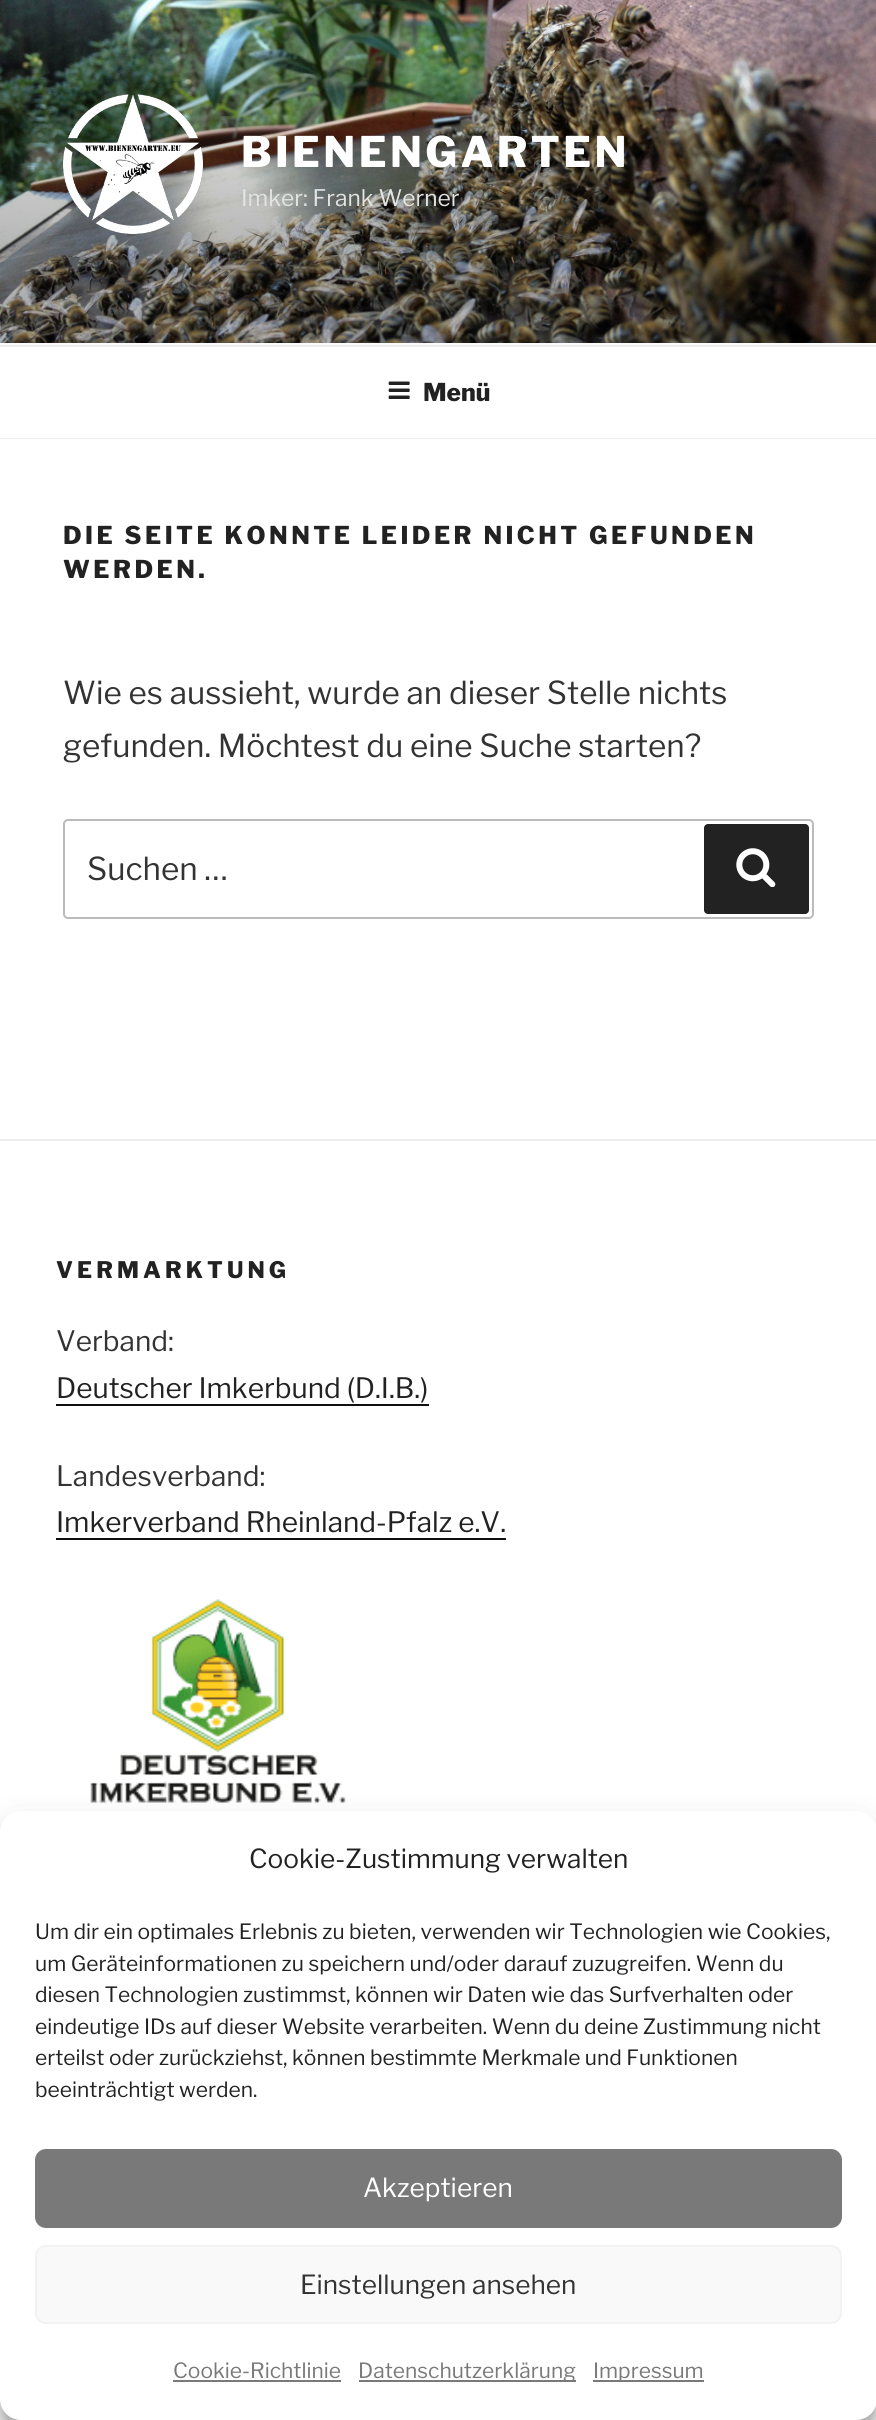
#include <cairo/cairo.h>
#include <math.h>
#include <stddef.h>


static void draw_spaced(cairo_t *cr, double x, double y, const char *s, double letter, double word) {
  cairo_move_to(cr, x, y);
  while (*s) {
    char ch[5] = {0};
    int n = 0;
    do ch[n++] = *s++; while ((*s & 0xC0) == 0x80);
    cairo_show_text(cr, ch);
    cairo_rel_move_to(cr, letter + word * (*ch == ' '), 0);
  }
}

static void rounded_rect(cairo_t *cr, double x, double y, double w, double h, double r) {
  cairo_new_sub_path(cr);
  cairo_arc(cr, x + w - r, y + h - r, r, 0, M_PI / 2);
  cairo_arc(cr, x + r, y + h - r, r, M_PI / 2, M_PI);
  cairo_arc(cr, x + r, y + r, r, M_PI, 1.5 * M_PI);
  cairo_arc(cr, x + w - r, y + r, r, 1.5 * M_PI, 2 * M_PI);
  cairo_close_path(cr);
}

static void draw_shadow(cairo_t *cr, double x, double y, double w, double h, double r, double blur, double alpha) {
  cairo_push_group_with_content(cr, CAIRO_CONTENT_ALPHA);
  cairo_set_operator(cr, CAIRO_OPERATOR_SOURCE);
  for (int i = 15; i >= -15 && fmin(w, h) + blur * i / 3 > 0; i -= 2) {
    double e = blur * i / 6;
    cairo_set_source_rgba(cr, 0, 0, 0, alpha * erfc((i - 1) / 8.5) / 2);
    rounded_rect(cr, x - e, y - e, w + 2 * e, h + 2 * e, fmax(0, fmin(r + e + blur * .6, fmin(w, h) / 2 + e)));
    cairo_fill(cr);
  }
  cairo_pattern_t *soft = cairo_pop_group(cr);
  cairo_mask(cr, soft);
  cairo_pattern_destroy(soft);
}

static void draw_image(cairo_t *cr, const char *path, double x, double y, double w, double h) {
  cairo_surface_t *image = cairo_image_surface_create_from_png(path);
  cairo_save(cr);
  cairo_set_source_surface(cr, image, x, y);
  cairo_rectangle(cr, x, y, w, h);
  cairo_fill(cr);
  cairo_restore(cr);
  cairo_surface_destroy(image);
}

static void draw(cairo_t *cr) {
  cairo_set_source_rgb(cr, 250 / 255.0, 250 / 255.0, 250 / 255.0);
  cairo_paint(cr);
  draw_image(cr, "images/1.png", 0, 0, 876, 343);
  draw_image(cr, "images/2.png", 63, 94, 140, 140);
  cairo_set_source_rgb(cr, 1, 1, 1);
  cairo_rectangle(cr, 0, 347, 876, 91);
  cairo_fill(cr);
  cairo_set_source_rgb(cr, 238 / 255.0, 238 / 255.0, 238 / 255.0);
  cairo_rectangle(cr, 0, 345, 876, 2);
  cairo_fill(cr);
  cairo_rectangle(cr, 0, 438, 876, 1);
  cairo_fill(cr);
  draw_image(cr, "images/3.png", 388, 381, 22, 18);
  cairo_set_source_rgb(cr, 1, 1, 1);
  cairo_rectangle(cr, 0, 439, 876, 1981);
  cairo_fill(cr);
  rounded_rect(cr, 64, 820, 749, 98, 4);
  cairo_set_source_rgb(cr, 187 / 255.0, 187 / 255.0, 187 / 255.0);
  cairo_stroke(cr);
  cairo_set_source_rgb(cr, 34 / 255.0, 34 / 255.0, 34 / 255.0);
  rounded_rect(cr, 704, 824, 105, 90, 4);
  cairo_fill(cr);
  draw_image(cr, "images/4.png", 736, 848, 40, 39);
  cairo_set_source_rgb(cr, 238 / 255.0, 238 / 255.0, 238 / 255.0);
  cairo_rectangle(cr, 0, 1139, 876, 2);
  cairo_fill(cr);
  cairo_set_source_rgb(cr, 15 / 255.0, 15 / 255.0, 15 / 255.0);
  cairo_rectangle(cr, 56, 1404, 373, 2);
  cairo_fill(cr);
  cairo_rectangle(cr, 56, 1538, 450, 2);
  cairo_fill(cr);
  draw_image(cr, "images/5.png", 90, 1599, 256, 204);
  cairo_set_source_rgb(cr, 0, 0, 0);
  draw_shadow(cr, 0, 1822, 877, 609, 21, 5, 0.23);
  draw_shadow(cr, 0, 1829, 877, 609, 21, 17.5, 0.19);
  cairo_set_source_rgb(cr, 1, 1, 1);
  rounded_rect(cr, 0, 1811, 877, 609, 21);
  cairo_fill(cr);
  cairo_set_source_rgb(cr, 122 / 255.0, 121 / 255.0, 121 / 255.0);
  rounded_rect(cr, 36, 2150, 805, 77, 10);
  cairo_fill_preserve(cr);
  cairo_stroke(cr);
  cairo_set_source_rgb(cr, 249 / 255.0, 249 / 255.0, 249 / 255.0);
  rounded_rect(cr, 36, 2246, 805, 77, 10);
  cairo_fill_preserve(cr);
  cairo_set_source_rgb(cr, 242 / 255.0, 242 / 255.0, 242 / 255.0);
  cairo_stroke(cr);
  cairo_set_source_rgb(cr, 122 / 255.0, 121 / 255.0, 121 / 255.0);
  cairo_rectangle(cr, 173, 2380, 168, 2);
  cairo_fill(cr);
  cairo_rectangle(cr, 359, 2380, 217, 2);
  cairo_fill(cr);
  cairo_rectangle(cr, 593, 2380, 111, 2);
  cairo_fill(cr);
  cairo_select_font_face(cr, "Libre Franklin Thin", CAIRO_FONT_SLANT_NORMAL, CAIRO_FONT_WEIGHT_NORMAL);
  cairo_set_font_size(cr, 42);
  cairo_set_source_rgb(cr, 1, 1, 1);
  draw_spaced(cr, 241, 167, "BIENENGARTEN", 3.4, 0);
  cairo_select_font_face(cr, "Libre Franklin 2 Thin", CAIRO_FONT_SLANT_NORMAL, CAIRO_FONT_WEIGHT_NORMAL);
  cairo_set_font_size(cr, 22.75);
  cairo_set_source_rgb(cr, 226 / 255.0, 227 / 255.0, 226 / 255.0);
  cairo_move_to(cr, 241, 206);
  cairo_show_text(cr, "Imker: Frank Werner");
  cairo_select_font_face(cr, "Libre Franklin Thin", CAIRO_FONT_SLANT_NORMAL, CAIRO_FONT_WEIGHT_NORMAL);
  cairo_set_font_size(cr, 24.5);
  cairo_set_source_rgb(cr, 34 / 255.0, 34 / 255.0, 34 / 255.0);
  cairo_move_to(cr, 423, 401);
  cairo_show_text(cr, "Menü");
  draw_spaced(cr, 63, 544, "DIE SEITE KONNTE LEIDER NICHT GEFUNDEN", 3.45, 0);
  draw_spaced(cr, 63, 578, "WERDEN.", 3.45, 0);
  cairo_select_font_face(cr, "Libre Franklin 2 Thin", CAIRO_FONT_SLANT_NORMAL, CAIRO_FONT_WEIGHT_NORMAL);
  cairo_set_font_size(cr, 31.5);
  cairo_set_source_rgb(cr, 51 / 255.0, 51 / 255.0, 51 / 255.0);
  cairo_move_to(cr, 63, 704);
  cairo_show_text(cr, "Wie es aussieht, wurde an dieser Stelle nichts");
  cairo_move_to(cr, 63, 757);
  cairo_show_text(cr, "gefunden. Möchtest du eine Suche starten?");
  cairo_move_to(cr, 87, 880);
  cairo_show_text(cr, "Suchen …");
  cairo_select_font_face(cr, "Libre Franklin Thin", CAIRO_FONT_SLANT_NORMAL, CAIRO_FONT_WEIGHT_NORMAL);
  cairo_set_font_size(cr, 22.75);
  cairo_set_source_rgb(cr, 34 / 255.0, 34 / 255.0, 34 / 255.0);
  draw_spaced(cr, 56, 1278, "VERMARKTUNG", 4.1, 0);
  cairo_select_font_face(cr, "Libre Franklin 2 Thin", CAIRO_FONT_SLANT_NORMAL, CAIRO_FONT_WEIGHT_NORMAL);
  cairo_set_font_size(cr, 28);
  cairo_set_source_rgb(cr, 51 / 255.0, 51 / 255.0, 51 / 255.0);
  cairo_move_to(cr, 56, 1351);
  cairo_show_text(cr, "Verband:");
  cairo_set_source_rgb(cr, 34 / 255.0, 34 / 255.0, 34 / 255.0);
  cairo_move_to(cr, 56, 1398);
  cairo_show_text(cr, "Deutscher Imkerbund (D.I.B.)");
  cairo_set_source_rgb(cr, 51 / 255.0, 51 / 255.0, 51 / 255.0);
  cairo_move_to(cr, 56, 1486);
  cairo_show_text(cr, "Landesverband:");
  cairo_set_source_rgb(cr, 34 / 255.0, 34 / 255.0, 34 / 255.0);
  cairo_move_to(cr, 56, 1532);
  cairo_show_text(cr, "Imkerverband Rheinland-Pfalz e.V.");
  cairo_set_font_size(cr, 26.25);
  cairo_move_to(cr, 249, 1868);
  cairo_show_text(cr, "Cookie-Zustimmung verwalten");
  cairo_set_font_size(cr, 21);
  cairo_move_to(cr, 35, 1939);
  cairo_show_text(cr, "Um dir ein optimales Erlebnis zu bieten, verwenden wir Technologien wie Cookies,");
  cairo_move_to(cr, 35, 1971);
  cairo_show_text(cr, "um Geräteinformationen zu speichern und/oder darauf zuzugreifen. Wenn du");
  cairo_move_to(cr, 35, 2002);
  cairo_show_text(cr, "diesen Technologien zustimmst, können wir Daten wie das Surfverhalten oder");
  cairo_move_to(cr, 35, 2034);
  cairo_show_text(cr, "eindeutige IDs auf dieser Website verarbeiten. Wenn du deine Zustimmung nicht");
  cairo_move_to(cr, 35, 2065);
  cairo_show_text(cr, "erteilst oder zurückziehst, können bestimmte Merkmale und Funktionen");
  cairo_move_to(cr, 35, 2097);
  cairo_show_text(cr, "beeinträchtigt werden.");
  cairo_set_font_size(cr, 26.25);
  cairo_set_source_rgb(cr, 1, 1, 1);
  cairo_move_to(cr, 363, 2197);
  cairo_show_text(cr, "Akzeptieren");
  cairo_set_source_rgb(cr, 51 / 255.0, 51 / 255.0, 51 / 255.0);
  cairo_move_to(cr, 300, 2294);
  cairo_show_text(cr, "Einstellungen ansehen");
  cairo_set_font_size(cr, 21);
  cairo_set_source_rgb(cr, 122 / 255.0, 121 / 255.0, 121 / 255.0);
  cairo_move_to(cr, 173, 2378);
  cairo_show_text(cr, "Cookie-Richtlinie");
  cairo_move_to(cr, 358, 2378);
  cairo_show_text(cr, "Datenschutzerklärung");
  cairo_move_to(cr, 593, 2378);
  cairo_show_text(cr, "Impressum");
}

int main(void) {
  cairo_surface_t *surface = cairo_image_surface_create(CAIRO_FORMAT_RGB24, 876, 2420);
  cairo_t *cr = cairo_create(surface);
  cairo_font_options_t *options = cairo_font_options_create();
  cairo_font_options_set_hint_metrics(options, CAIRO_HINT_METRICS_OFF);
  cairo_font_options_set_hint_style(options, CAIRO_HINT_STYLE_NONE);
  cairo_set_font_options(cr, options);
  cairo_set_miter_limit(cr, 4);
  draw(cr);
  cairo_surface_write_to_png(surface, "out.png");
  cairo_font_options_destroy(options);
  cairo_destroy(cr);
  cairo_surface_destroy(surface);
  return 0;
}
